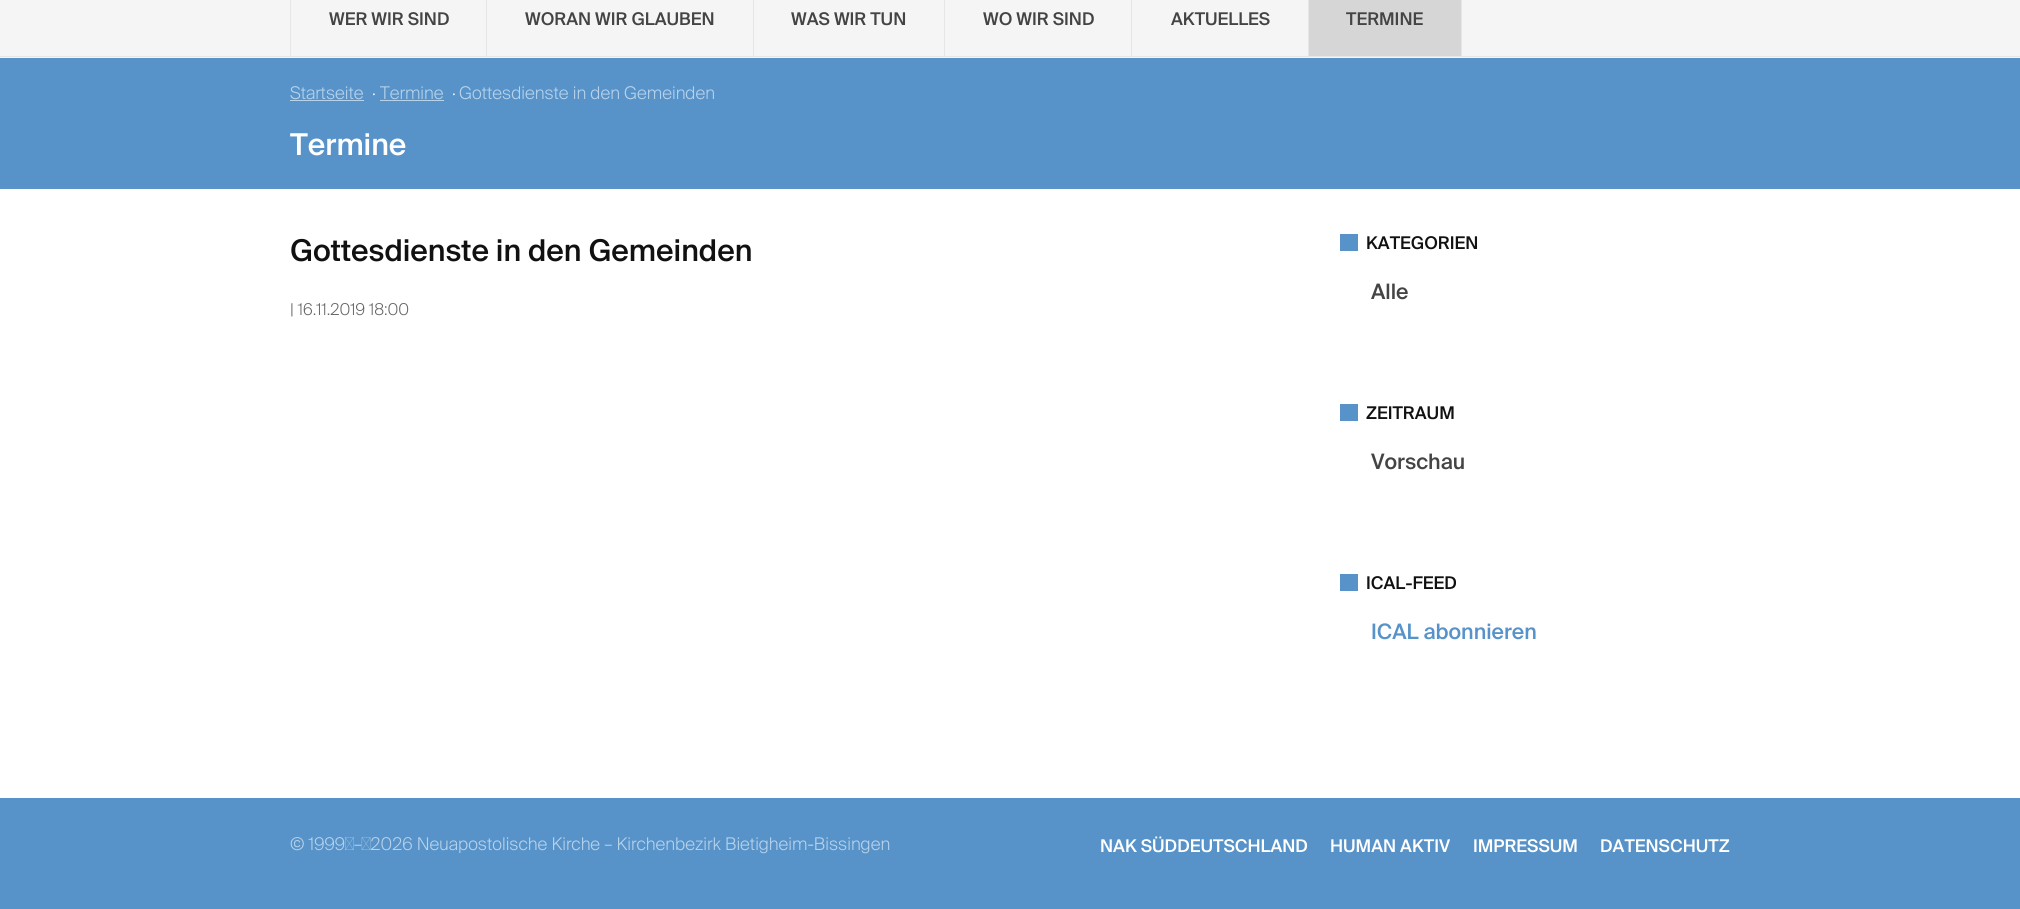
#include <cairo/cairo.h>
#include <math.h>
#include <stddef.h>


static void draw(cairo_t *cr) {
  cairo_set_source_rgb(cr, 1, 1, 1);
  cairo_paint(cr);
  cairo_set_source_rgb(cr, 245 / 255.0, 245 / 255.0, 245 / 255.0);
  cairo_rectangle(cr, 0, 0, 2020, 58);
  cairo_fill(cr);
  cairo_set_source_rgb(cr, 230 / 255.0, 230 / 255.0, 230 / 255.0);
  cairo_rectangle(cr, 0, 56, 2020, 1);
  cairo_fill(cr);
  cairo_rectangle(cr, 290, 0, 1, 56);
  cairo_fill(cr);
  cairo_rectangle(cr, 486, 0, 1, 56);
  cairo_fill(cr);
  cairo_rectangle(cr, 753, 0, 1, 56);
  cairo_fill(cr);
  cairo_rectangle(cr, 944, 0, 1, 56);
  cairo_fill(cr);
  cairo_rectangle(cr, 1131, 0, 1, 56);
  cairo_fill(cr);
  cairo_rectangle(cr, 1461, 0, 1, 56);
  cairo_fill(cr);
  cairo_rectangle(cr, 1308, 0, 1, 56);
  cairo_fill(cr);
  cairo_set_source_rgb(cr, 214 / 255.0, 214 / 255.0, 214 / 255.0);
  cairo_rectangle(cr, 1309, 0, 152, 56);
  cairo_fill(cr);
  cairo_set_source_rgb(cr, 87 / 255.0, 147 / 255.0, 201 / 255.0);
  cairo_rectangle(cr, 0, 58, 2020, 131);
  cairo_fill(cr);
  cairo_set_source_rgb(cr, 183 / 255.0, 210 / 255.0, 235 / 255.0);
  cairo_rectangle(cr, 290, 100, 74, 1);
  cairo_fill(cr);
  cairo_rectangle(cr, 380, 100, 64, 1);
  cairo_fill(cr);
  cairo_set_source_rgb(cr, 87 / 255.0, 147 / 255.0, 201 / 255.0);
  cairo_rectangle(cr, 1340, 234, 18, 17);
  cairo_fill(cr);
  cairo_rectangle(cr, 1340, 404, 18, 17);
  cairo_fill(cr);
  cairo_rectangle(cr, 1340, 574, 18, 17);
  cairo_fill(cr);
  cairo_rectangle(cr, 0, 798, 2020, 111);
  cairo_fill(cr);
  cairo_select_font_face(cr, "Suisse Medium", CAIRO_FONT_SLANT_NORMAL, CAIRO_FONT_WEIGHT_NORMAL);
  cairo_set_font_size(cr, 17.5);
  cairo_set_source_rgb(cr, 68 / 255.0, 68 / 255.0, 68 / 255.0);
  cairo_move_to(cr, 329, 25);
  cairo_show_text(cr, "WER WIR SIND");
  cairo_move_to(cr, 525, 25);
  cairo_show_text(cr, "WORAN WIR GLAUBEN");
  cairo_move_to(cr, 791, 25);
  cairo_show_text(cr, "WAS WIR TUN");
  cairo_move_to(cr, 983, 25);
  cairo_show_text(cr, "WO WIR SIND");
  cairo_move_to(cr, 1171, 25);
  cairo_show_text(cr, "AKTUELLES");
  cairo_move_to(cr, 1346, 25);
  cairo_show_text(cr, "TERMINE");
  cairo_select_font_face(cr, "Suisse Light", CAIRO_FONT_SLANT_NORMAL, CAIRO_FONT_WEIGHT_NORMAL);
  cairo_set_source_rgb(cr, 183 / 255.0, 210 / 255.0, 235 / 255.0);
  cairo_move_to(cr, 290, 99);
  cairo_show_text(cr, "Startseite");
  cairo_set_source_rgb(cr, 1, 1, 1);
  cairo_move_to(cr, 372, 99);
  cairo_show_text(cr, "·");
  cairo_set_source_rgb(cr, 183 / 255.0, 210 / 255.0, 235 / 255.0);
  cairo_move_to(cr, 380, 99);
  cairo_show_text(cr, "Termine");
  cairo_set_source_rgb(cr, 1, 1, 1);
  cairo_move_to(cr, 452, 99);
  cairo_show_text(cr, "·");
  cairo_set_source_rgb(cr, 183 / 255.0, 210 / 255.0, 235 / 255.0);
  cairo_move_to(cr, 459, 99);
  cairo_show_text(cr, "Gottesdienste in den Gemeinden");
  cairo_select_font_face(cr, "Suisse Medium", CAIRO_FONT_SLANT_NORMAL, CAIRO_FONT_WEIGHT_NORMAL);
  cairo_set_font_size(cr, 30);
  cairo_set_source_rgb(cr, 1, 1, 1);
  cairo_move_to(cr, 290, 155);
  cairo_show_text(cr, "Termine");
  cairo_set_source_rgb(cr, 17 / 255.0, 17 / 255.0, 17 / 255.0);
  cairo_move_to(cr, 290, 261);
  cairo_show_text(cr, "Gottesdienste in den Gemeinden");
  cairo_select_font_face(cr, "Suisse Light", CAIRO_FONT_SLANT_NORMAL, CAIRO_FONT_WEIGHT_NORMAL);
  cairo_set_font_size(cr, 16.25);
  cairo_set_source_rgb(cr, 102 / 255.0, 102 / 255.0, 102 / 255.0);
  cairo_move_to(cr, 290, 315);
  cairo_show_text(cr, "| 16.11.2019 18:00");
  cairo_select_font_face(cr, "Suisse Medium", CAIRO_FONT_SLANT_NORMAL, CAIRO_FONT_WEIGHT_NORMAL);
  cairo_set_font_size(cr, 17.5);
  cairo_set_source_rgb(cr, 17 / 255.0, 17 / 255.0, 17 / 255.0);
  cairo_move_to(cr, 1366, 249);
  cairo_show_text(cr, "KATEGORIEN");
  cairo_set_font_size(cr, 21.25);
  cairo_set_source_rgb(cr, 68 / 255.0, 68 / 255.0, 68 / 255.0);
  cairo_move_to(cr, 1371, 299);
  cairo_show_text(cr, "Alle");
  cairo_set_font_size(cr, 17.5);
  cairo_set_source_rgb(cr, 17 / 255.0, 17 / 255.0, 17 / 255.0);
  cairo_move_to(cr, 1366, 419);
  cairo_show_text(cr, "ZEITRAUM");
  cairo_set_font_size(cr, 21.25);
  cairo_set_source_rgb(cr, 68 / 255.0, 68 / 255.0, 68 / 255.0);
  cairo_move_to(cr, 1371, 469);
  cairo_show_text(cr, "Vorschau");
  cairo_set_font_size(cr, 17.5);
  cairo_set_source_rgb(cr, 17 / 255.0, 17 / 255.0, 17 / 255.0);
  cairo_move_to(cr, 1366, 589);
  cairo_show_text(cr, "ICAL-FEED");
  cairo_set_font_size(cr, 21.25);
  cairo_set_source_rgb(cr, 87 / 255.0, 147 / 255.0, 201 / 255.0);
  cairo_move_to(cr, 1371, 639);
  cairo_show_text(cr, "ICAL abonnieren");
  cairo_select_font_face(cr, "Suisse Light", CAIRO_FONT_SLANT_NORMAL, CAIRO_FONT_WEIGHT_NORMAL);
  cairo_set_font_size(cr, 17.5);
  cairo_set_source_rgb(cr, 183 / 255.0, 210 / 255.0, 235 / 255.0);
  cairo_move_to(cr, 290, 850);
  cairo_show_text(cr, "© 1999 – 2026 Neuapostolische Kirche – Kirchenbezirk Bietigheim-Bissingen");
  cairo_select_font_face(cr, "Suisse Medium", CAIRO_FONT_SLANT_NORMAL, CAIRO_FONT_WEIGHT_NORMAL);
  cairo_set_source_rgb(cr, 1, 1, 1);
  cairo_move_to(cr, 1100, 852);
  cairo_show_text(cr, "NAK SÜDDEUTSCHLAND");
  cairo_move_to(cr, 1330, 852);
  cairo_show_text(cr, "HUMAN AKTIV");
  cairo_move_to(cr, 1473, 852);
  cairo_show_text(cr, "IMPRESSUM");
  cairo_move_to(cr, 1600, 852);
  cairo_show_text(cr, "DATENSCHUTZ");
}

int main(void) {
  cairo_surface_t *surface = cairo_image_surface_create(CAIRO_FORMAT_RGB24, 2020, 909);
  cairo_t *cr = cairo_create(surface);
  cairo_font_options_t *options = cairo_font_options_create();
  cairo_font_options_set_hint_metrics(options, CAIRO_HINT_METRICS_OFF);
  cairo_font_options_set_hint_style(options, CAIRO_HINT_STYLE_NONE);
  cairo_set_font_options(cr, options);
  cairo_set_miter_limit(cr, 4);
  draw(cr);
  cairo_surface_write_to_png(surface, "out.png");
  cairo_font_options_destroy(options);
  cairo_destroy(cr);
  cairo_surface_destroy(surface);
  return 0;
}
